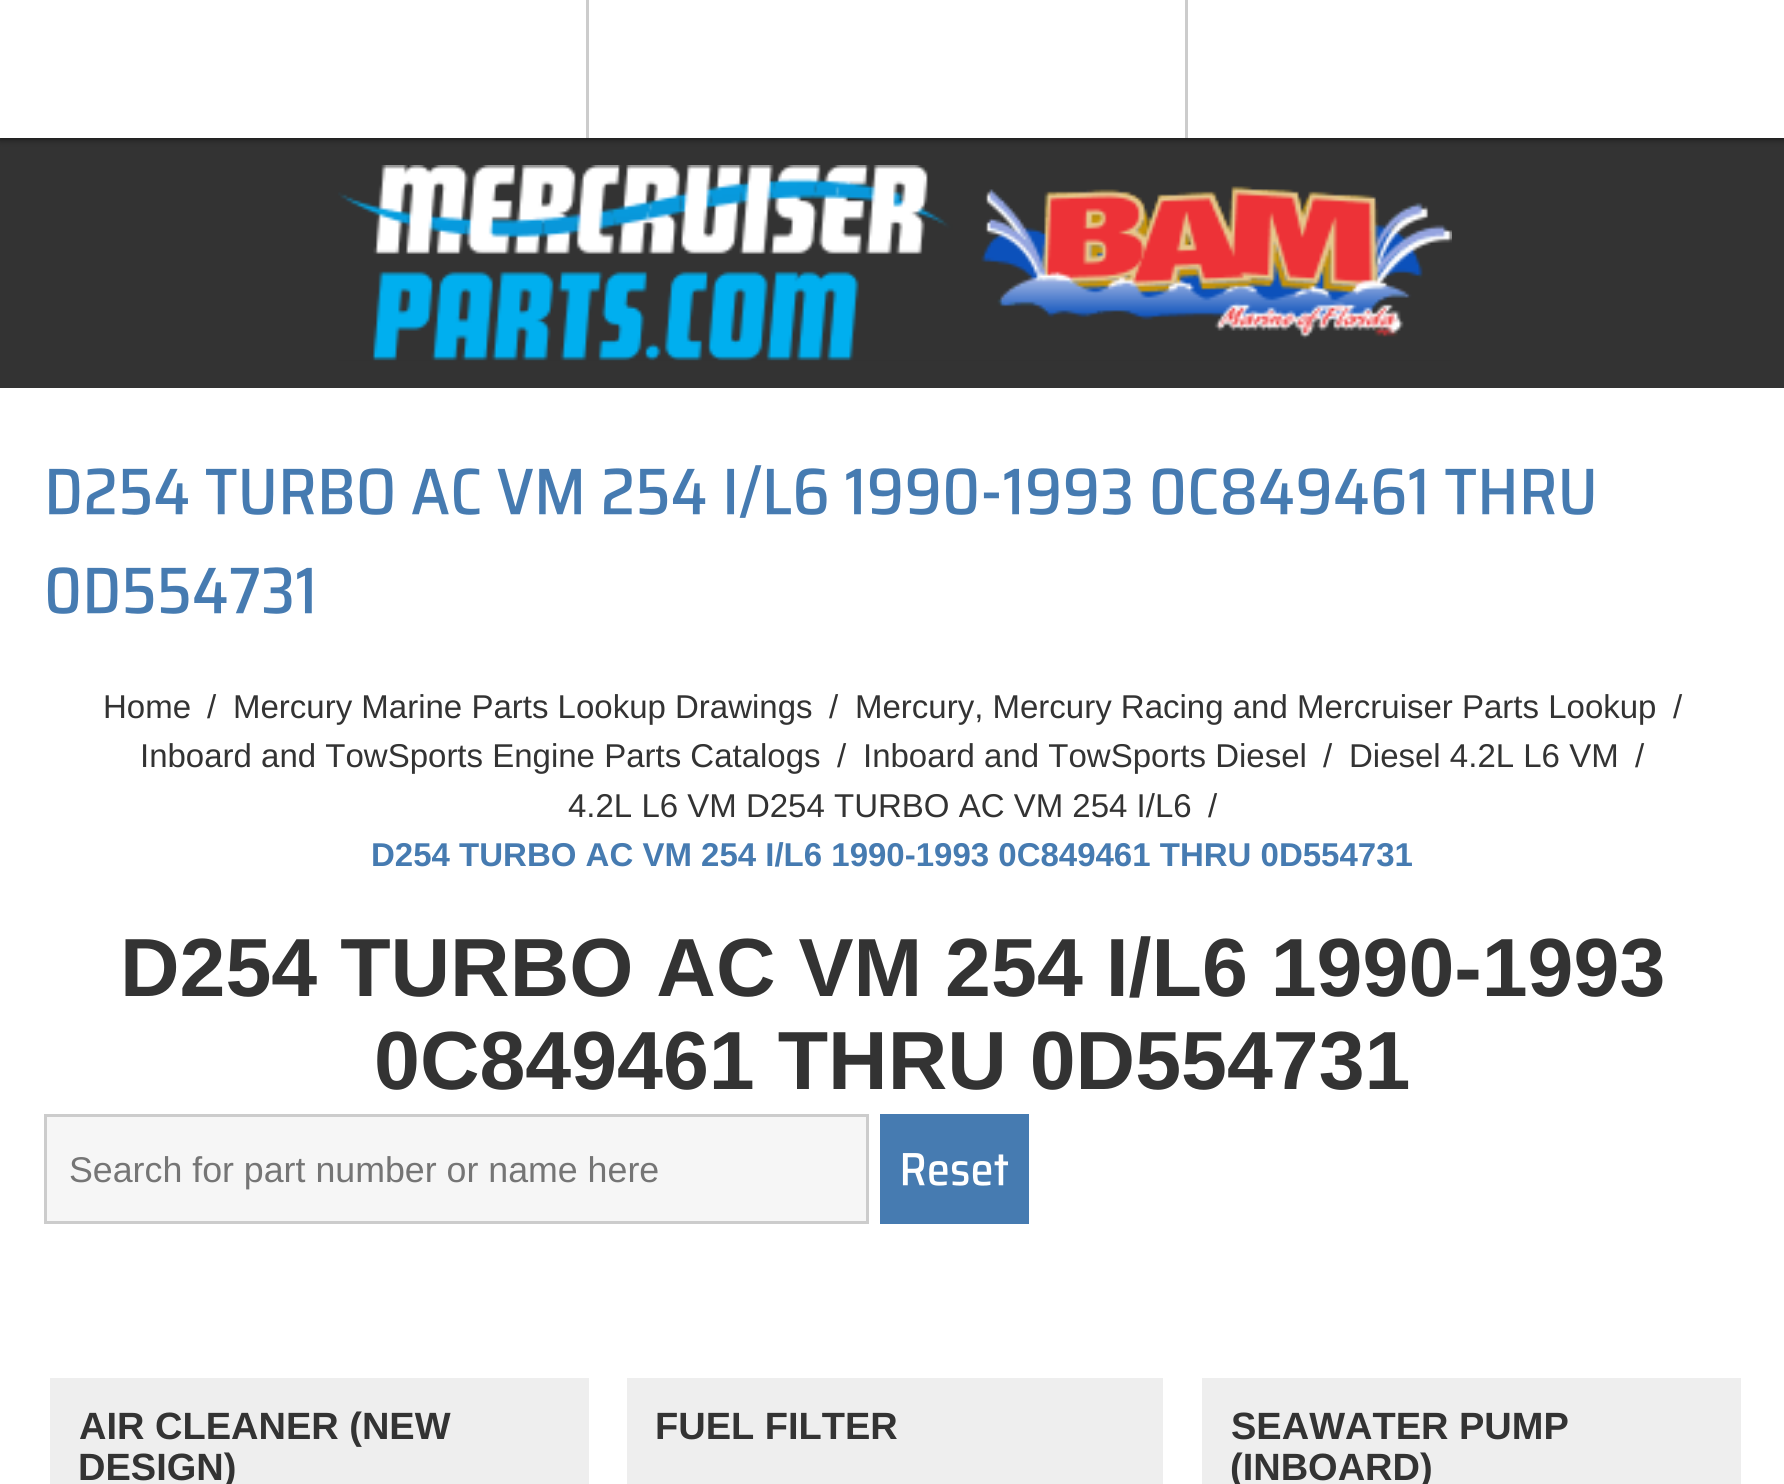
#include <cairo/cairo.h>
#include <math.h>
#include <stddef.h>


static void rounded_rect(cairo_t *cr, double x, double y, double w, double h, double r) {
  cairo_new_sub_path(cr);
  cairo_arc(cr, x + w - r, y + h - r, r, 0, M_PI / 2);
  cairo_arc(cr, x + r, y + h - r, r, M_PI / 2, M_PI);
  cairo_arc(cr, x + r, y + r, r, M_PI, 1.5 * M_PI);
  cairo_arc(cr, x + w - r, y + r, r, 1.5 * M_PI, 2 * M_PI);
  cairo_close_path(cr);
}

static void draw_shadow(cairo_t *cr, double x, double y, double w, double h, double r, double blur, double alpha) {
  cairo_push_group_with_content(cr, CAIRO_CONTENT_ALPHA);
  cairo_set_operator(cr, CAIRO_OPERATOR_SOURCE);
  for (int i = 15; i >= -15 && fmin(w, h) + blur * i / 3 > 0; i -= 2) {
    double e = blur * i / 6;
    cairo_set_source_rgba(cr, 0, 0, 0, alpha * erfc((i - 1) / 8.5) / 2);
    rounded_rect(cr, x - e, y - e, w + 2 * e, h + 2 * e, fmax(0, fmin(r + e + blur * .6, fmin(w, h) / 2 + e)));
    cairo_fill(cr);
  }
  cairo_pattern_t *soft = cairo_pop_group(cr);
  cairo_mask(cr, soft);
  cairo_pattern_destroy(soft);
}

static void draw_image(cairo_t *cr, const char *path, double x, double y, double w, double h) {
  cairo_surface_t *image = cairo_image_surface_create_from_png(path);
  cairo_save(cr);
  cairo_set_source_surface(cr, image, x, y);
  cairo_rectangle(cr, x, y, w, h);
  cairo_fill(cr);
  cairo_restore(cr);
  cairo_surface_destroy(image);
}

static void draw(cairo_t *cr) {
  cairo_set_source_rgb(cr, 1, 1, 1);
  cairo_paint(cr);
  cairo_set_source_rgb(cr, 51 / 255.0, 51 / 255.0, 51 / 255.0);
  cairo_rectangle(cr, 0, 138, 1784, 250);
  cairo_fill(cr);
  cairo_set_source_rgb(cr, 0, 0, 0);
  draw_shadow(cr, 0, 0, 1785, 138, 0, 4, 0.75);
  cairo_set_source_rgb(cr, 1, 1, 1);
  cairo_rectangle(cr, 0, 0, 1784, 138);
  cairo_fill(cr);
  cairo_set_source_rgb(cr, 204 / 255.0, 204 / 255.0, 204 / 255.0);
  cairo_rectangle(cr, 586, 0, 3, 138);
  cairo_fill(cr);
  cairo_rectangle(cr, 1185, 0, 3, 138);
  cairo_fill(cr);
  draw_image(cr, "images/1.png", 338, 165, 1114, 196);
  draw_image(cr, "images/2.png", 49, 465, 1545, 53);
  draw_image(cr, "images/3.png", 47, 567, 265, 47);
  cairo_set_source_rgb(cr, 246 / 255.0, 246 / 255.0, 246 / 255.0);
  cairo_rectangle(cr, 45.5, 1115.5, 822, 107);
  cairo_fill_preserve(cr);
  cairo_set_source_rgb(cr, 204 / 255.0, 204 / 255.0, 204 / 255.0);
  cairo_set_line_width(cr, 3);
  cairo_stroke(cr);
  cairo_set_source_rgb(cr, 70 / 255.0, 123 / 255.0, 177 / 255.0);
  cairo_rectangle(cr, 880, 1114, 149, 110);
  cairo_fill(cr);
  draw_image(cr, "images/4.png", 902, 1153, 107, 33);
  cairo_set_source_rgb(cr, 238 / 255.0, 238 / 255.0, 238 / 255.0);
  cairo_rectangle(cr, 50, 1378, 539, 106);
  cairo_fill(cr);
  cairo_rectangle(cr, 627, 1378, 536, 106);
  cairo_fill(cr);
  cairo_rectangle(cr, 1202, 1378, 539, 106);
  cairo_fill(cr);
  cairo_select_font_face(cr, "Liberation Sans", CAIRO_FONT_SLANT_NORMAL, CAIRO_FONT_WEIGHT_NORMAL);
  cairo_set_font_size(cr, 33);
  cairo_set_source_rgb(cr, 51 / 255.0, 51 / 255.0, 51 / 255.0);
  cairo_move_to(cr, 103, 718);
  cairo_show_text(cr, "Home");
  cairo_move_to(cr, 207, 718);
  cairo_show_text(cr, "/");
  cairo_move_to(cr, 233, 718);
  cairo_show_text(cr, "Mercury Marine Parts Lookup Drawings");
  cairo_move_to(cr, 829, 718);
  cairo_show_text(cr, "/");
  cairo_move_to(cr, 855, 718);
  cairo_show_text(cr, "Mercury, Mercury Racing and Mercruiser Parts Lookup");
  cairo_move_to(cr, 1673, 718);
  cairo_show_text(cr, "/");
  cairo_move_to(cr, 140, 767);
  cairo_show_text(cr, "Inboard and TowSports Engine Parts Catalogs");
  cairo_move_to(cr, 837, 767);
  cairo_show_text(cr, "/");
  cairo_move_to(cr, 863, 767);
  cairo_show_text(cr, "Inboard and TowSports Diesel");
  cairo_move_to(cr, 1323, 767);
  cairo_show_text(cr, "/");
  cairo_move_to(cr, 1349, 767);
  cairo_show_text(cr, "Diesel 4.2L L6 VM");
  cairo_move_to(cr, 1635, 767);
  cairo_show_text(cr, "/");
  cairo_move_to(cr, 568, 817);
  cairo_show_text(cr, "4.2L L6 VM D254 TURBO AC VM 254 I/L6");
  cairo_move_to(cr, 1208, 817);
  cairo_show_text(cr, "/");
  cairo_select_font_face(cr, "Liberation Sans", CAIRO_FONT_SLANT_NORMAL, CAIRO_FONT_WEIGHT_BOLD);
  cairo_set_source_rgb(cr, 70 / 255.0, 123 / 255.0, 177 / 255.0);
  cairo_move_to(cr, 371, 866);
  cairo_show_text(cr, "D254 TURBO AC VM 254 I/L6 1990-1993 0C849461 THRU 0D554731");
  cairo_set_font_size(cr, 82.5);
  cairo_set_source_rgb(cr, 51 / 255.0, 51 / 255.0, 51 / 255.0);
  cairo_move_to(cr, 120, 996);
  cairo_show_text(cr, "D254 TURBO AC VM 254 I/L6 1990-1993");
  cairo_move_to(cr, 374, 1089);
  cairo_show_text(cr, "0C849461 THRU 0D554731");
  cairo_select_font_face(cr, "Liberation Sans", CAIRO_FONT_SLANT_NORMAL, CAIRO_FONT_WEIGHT_NORMAL);
  cairo_set_font_size(cr, 35.75);
  cairo_set_source_rgb(cr, 117 / 255.0, 117 / 255.0, 117 / 255.0);
  cairo_move_to(cr, 69, 1182);
  cairo_show_text(cr, "Search for part number or name here");
  cairo_select_font_face(cr, "Liberation Sans", CAIRO_FONT_SLANT_NORMAL, CAIRO_FONT_WEIGHT_BOLD);
  cairo_set_font_size(cr, 38);
  cairo_set_source_rgb(cr, 51 / 255.0, 51 / 255.0, 51 / 255.0);
  cairo_move_to(cr, 79, 1439);
  cairo_show_text(cr, "AIR CLEANER (NEW");
  cairo_move_to(cr, 78, 1480);
  cairo_show_text(cr, "DESIGN)");
  cairo_move_to(cr, 655, 1439);
  cairo_show_text(cr, "FUEL FILTER");
  cairo_move_to(cr, 1231, 1439);
  cairo_show_text(cr, "SEAWATER PUMP");
  cairo_move_to(cr, 1230, 1480);
  cairo_show_text(cr, "(INBOARD)");
}

int main(void) {
  cairo_surface_t *surface = cairo_image_surface_create(CAIRO_FORMAT_RGB24, 1784, 1484);
  cairo_t *cr = cairo_create(surface);
  cairo_font_options_t *options = cairo_font_options_create();
  cairo_font_options_set_hint_metrics(options, CAIRO_HINT_METRICS_OFF);
  cairo_font_options_set_hint_style(options, CAIRO_HINT_STYLE_NONE);
  cairo_set_font_options(cr, options);
  cairo_set_miter_limit(cr, 4);
  draw(cr);
  cairo_surface_write_to_png(surface, "out.png");
  cairo_font_options_destroy(options);
  cairo_destroy(cr);
  cairo_surface_destroy(surface);
  return 0;
}
